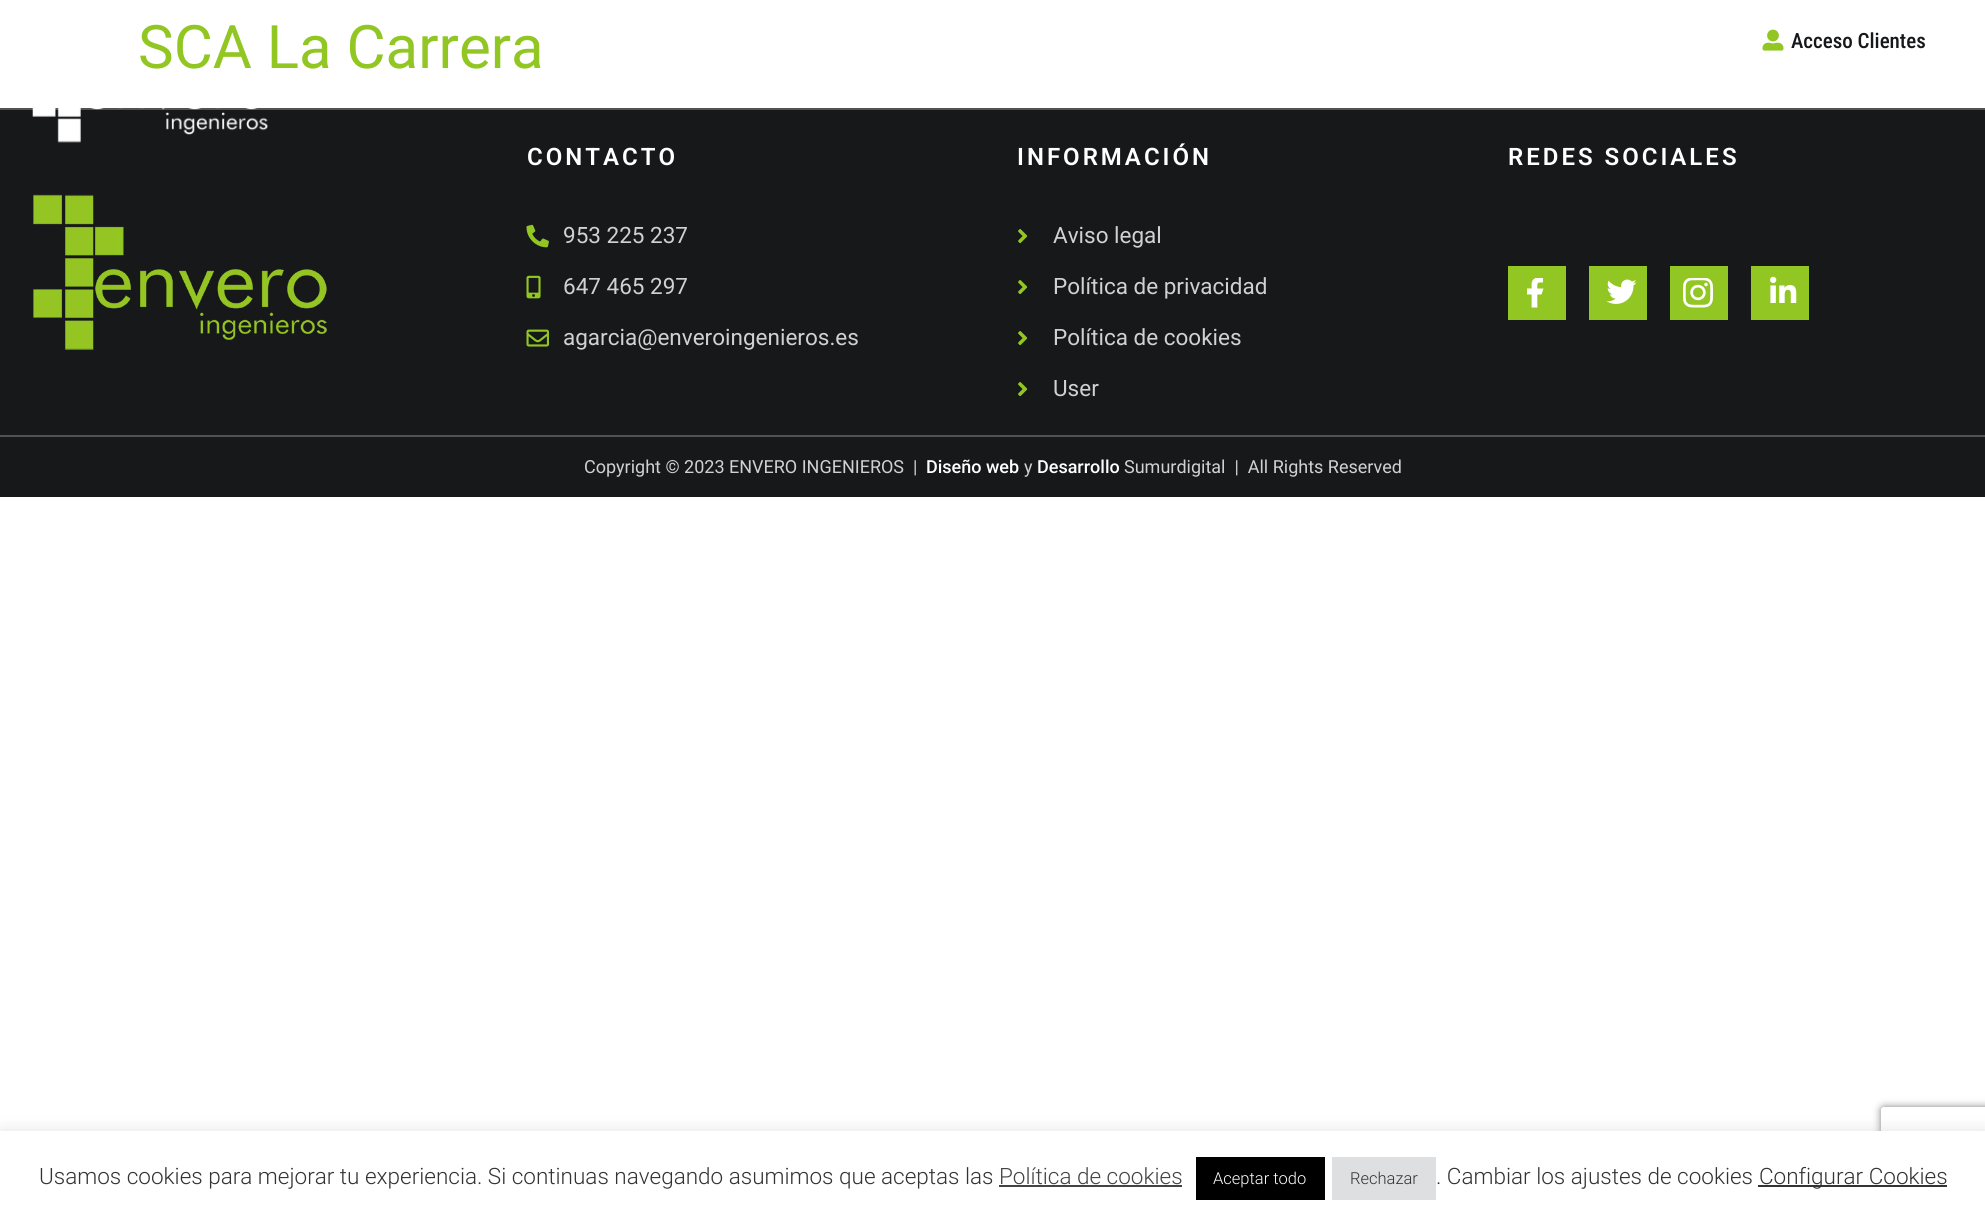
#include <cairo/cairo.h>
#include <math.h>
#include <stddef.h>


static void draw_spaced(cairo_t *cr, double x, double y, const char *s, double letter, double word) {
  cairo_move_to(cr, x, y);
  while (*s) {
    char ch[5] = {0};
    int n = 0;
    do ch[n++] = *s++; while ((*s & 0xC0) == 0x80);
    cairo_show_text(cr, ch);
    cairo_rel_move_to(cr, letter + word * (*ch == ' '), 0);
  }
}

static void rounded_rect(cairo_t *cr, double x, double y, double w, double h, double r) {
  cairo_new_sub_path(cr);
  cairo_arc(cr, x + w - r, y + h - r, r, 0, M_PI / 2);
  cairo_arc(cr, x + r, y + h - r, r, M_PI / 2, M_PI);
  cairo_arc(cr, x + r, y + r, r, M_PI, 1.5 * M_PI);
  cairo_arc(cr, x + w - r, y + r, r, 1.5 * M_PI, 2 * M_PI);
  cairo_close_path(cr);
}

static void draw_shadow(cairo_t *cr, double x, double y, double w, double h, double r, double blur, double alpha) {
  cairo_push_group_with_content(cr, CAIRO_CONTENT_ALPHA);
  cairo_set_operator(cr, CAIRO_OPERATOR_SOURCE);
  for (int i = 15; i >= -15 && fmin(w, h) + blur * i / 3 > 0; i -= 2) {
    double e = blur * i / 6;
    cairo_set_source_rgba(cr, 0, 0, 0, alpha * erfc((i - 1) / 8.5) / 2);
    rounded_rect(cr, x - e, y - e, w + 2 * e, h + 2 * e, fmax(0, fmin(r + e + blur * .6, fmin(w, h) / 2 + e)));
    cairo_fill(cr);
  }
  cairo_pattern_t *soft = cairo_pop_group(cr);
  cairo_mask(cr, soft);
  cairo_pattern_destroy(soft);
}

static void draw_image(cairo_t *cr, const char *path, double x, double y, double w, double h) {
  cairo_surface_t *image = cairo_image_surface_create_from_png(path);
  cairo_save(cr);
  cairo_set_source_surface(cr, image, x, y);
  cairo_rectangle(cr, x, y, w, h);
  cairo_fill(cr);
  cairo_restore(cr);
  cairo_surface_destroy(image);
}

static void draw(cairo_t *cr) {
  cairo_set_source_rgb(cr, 1, 1, 1);
  cairo_paint(cr);
  draw_image(cr, "images/1.png", 1762, 29, 22, 22);
  cairo_set_source_rgb(cr, 23 / 255.0, 24 / 255.0, 26 / 255.0);
  cairo_rectangle(cr, 0, 110, 1985, 325);
  cairo_fill(cr);
  cairo_set_source_rgb(cr, 81 / 255.0, 82 / 255.0, 83 / 255.0);
  cairo_rectangle(cr, 0, 108, 1985, 2);
  cairo_fill(cr);
  draw_image(cr, "images/2.png", 32, 108, 236, 35);
  cairo_rectangle(cr, 0, 435, 1985, 2);
  cairo_fill(cr);
  draw_image(cr, "images/3.png", 526, 224, 23, 24);
  draw_image(cr, "images/4.png", 526, 275, 15, 24);
  draw_image(cr, "images/5.png", 526, 329, 23, 18);
  draw_image(cr, "images/6.png", 1018, 229, 10, 15);
  draw_image(cr, "images/6.png", 1018, 280, 10, 15);
  draw_image(cr, "images/6.png", 1018, 331, 10, 15);
  draw_image(cr, "images/6.png", 1018, 382, 10, 15);
  cairo_set_source_rgb(cr, 146 / 255.0, 198 / 255.0, 35 / 255.0);
  cairo_rectangle(cr, 1508, 266, 58, 54);
  cairo_fill(cr);
  draw_image(cr, "images/7.png", 1527, 278, 17, 30);
  cairo_rectangle(cr, 1589, 266, 58, 54);
  cairo_fill(cr);
  draw_image(cr, "images/8.png", 1606, 279, 31, 25);
  cairo_rectangle(cr, 1670, 266, 58, 54);
  cairo_fill(cr);
  draw_image(cr, "images/9.png", 1683, 278, 30, 30);
  cairo_rectangle(cr, 1751, 266, 58, 54);
  cairo_fill(cr);
  draw_image(cr, "images/10.png", 1770, 276, 27, 27);
  draw_image(cr, "images/11.png", 33, 194, 294, 156);
  cairo_set_source_rgb(cr, 23 / 255.0, 24 / 255.0, 26 / 255.0);
  cairo_rectangle(cr, 0, 437, 1985, 60);
  cairo_fill(cr);
  cairo_save(cr);
  cairo_set_fill_rule(cr, CAIRO_FILL_RULE_EVEN_ODD);
  cairo_new_path(cr);
  cairo_move_to(cr, 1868, 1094);
  cairo_line_to(cr, 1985, 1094);
  cairo_line_to(cr, 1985, 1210);
  cairo_line_to(cr, 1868, 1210);
  cairo_close_path(cr);
  cairo_move_to(cr, 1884, 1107);
  cairo_line_to(cr, 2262, 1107);
  cairo_curve_to(cr, 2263.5, 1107, 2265, 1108.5, 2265, 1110);
  cairo_line_to(cr, 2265, 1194);
  cairo_curve_to(cr, 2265, 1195.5, 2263.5, 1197, 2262, 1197);
  cairo_line_to(cr, 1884, 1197);
  cairo_curve_to(cr, 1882.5, 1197, 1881, 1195.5, 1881, 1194);
  cairo_line_to(cr, 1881, 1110);
  cairo_curve_to(cr, 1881, 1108.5, 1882.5, 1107, 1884, 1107);
  cairo_close_path(cr);
  cairo_clip(cr);
  cairo_set_source_rgb(cr, 128 / 255.0, 128 / 255.0, 128 / 255.0);
  draw_shadow(cr, 1881, 1107, 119, 90, 3, 4, 1);
  cairo_restore(cr);
  cairo_set_source_rgb(cr, 172 / 255.0, 171 / 255.0, 171 / 255.0);
  draw_shadow(cr, 0, 1130, 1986, 87, 0, 7.5, 0.3);
  cairo_set_source_rgb(cr, 1, 1, 1);
  cairo_rectangle(cr, 0, 1131, 1985, 87);
  cairo_fill(cr);
  cairo_set_source_rgb(cr, 68 / 255.0, 68 / 255.0, 68 / 255.0);
  cairo_rectangle(cr, 999, 1185, 183, 2);
  cairo_fill(cr);
  cairo_set_source_rgb(cr, 0, 0, 0);
  cairo_rectangle(cr, 1196, 1157, 129, 43);
  cairo_fill(cr);
  cairo_set_source_rgb(cr, 222 / 255.0, 223 / 255.0, 224 / 255.0);
  cairo_rectangle(cr, 1332, 1157, 104, 43);
  cairo_fill(cr);
  cairo_set_source_rgb(cr, 51 / 255.0, 51 / 255.0, 51 / 255.0);
  cairo_rectangle(cr, 1758, 1185, 189, 2);
  cairo_fill(cr);
  cairo_select_font_face(cr, "Roboto", CAIRO_FONT_SLANT_NORMAL, CAIRO_FONT_WEIGHT_NORMAL);
  cairo_set_font_size(cr, 60);
  cairo_set_source_rgb(cr, 146 / 255.0, 198 / 255.0, 35 / 255.0);
  cairo_move_to(cr, 138, 68);
  cairo_show_text(cr, "SCA La Carrera");
  cairo_select_font_face(cr, "Roboto Condensed Medium", CAIRO_FONT_SLANT_NORMAL, CAIRO_FONT_WEIGHT_NORMAL);
  cairo_set_font_size(cr, 21);
  cairo_set_source_rgb(cr, 23 / 255.0, 24 / 255.0, 26 / 255.0);
  cairo_move_to(cr, 1791, 48);
  cairo_show_text(cr, "Acceso Clientes");
  cairo_select_font_face(cr, "Roboto SemiBold", CAIRO_FONT_SLANT_NORMAL, CAIRO_FONT_WEIGHT_NORMAL);
  cairo_set_font_size(cr, 24);
  cairo_set_source_rgb(cr, 1, 1, 1);
  draw_spaced(cr, 527, 165, "CONTACTO", 3, 0);
  cairo_select_font_face(cr, "Roboto", CAIRO_FONT_SLANT_NORMAL, CAIRO_FONT_WEIGHT_NORMAL);
  cairo_set_font_size(cr, 22.5);
  cairo_set_source_rgb(cr, 209 / 255.0, 209 / 255.0, 209 / 255.0);
  cairo_move_to(cr, 563, 243);
  cairo_show_text(cr, "953 225 237");
  cairo_move_to(cr, 563, 294);
  cairo_show_text(cr, "647 465 297");
  cairo_move_to(cr, 563, 345);
  cairo_show_text(cr, "agarcia@enveroingenieros.es");
  cairo_select_font_face(cr, "Roboto SemiBold", CAIRO_FONT_SLANT_NORMAL, CAIRO_FONT_WEIGHT_NORMAL);
  cairo_set_font_size(cr, 24);
  cairo_set_source_rgb(cr, 1, 1, 1);
  draw_spaced(cr, 1017, 165, "INFORMACIÓN", 3, 0);
  cairo_select_font_face(cr, "Roboto", CAIRO_FONT_SLANT_NORMAL, CAIRO_FONT_WEIGHT_NORMAL);
  cairo_set_font_size(cr, 22.5);
  cairo_set_source_rgb(cr, 209 / 255.0, 209 / 255.0, 209 / 255.0);
  cairo_move_to(cr, 1053, 243);
  cairo_show_text(cr, "Aviso legal");
  cairo_move_to(cr, 1053, 294);
  cairo_show_text(cr, "Política de privacidad");
  cairo_move_to(cr, 1053, 345);
  cairo_show_text(cr, "Política de cookies");
  cairo_move_to(cr, 1053, 396);
  cairo_show_text(cr, "User");
  cairo_select_font_face(cr, "Roboto SemiBold", CAIRO_FONT_SLANT_NORMAL, CAIRO_FONT_WEIGHT_NORMAL);
  cairo_set_font_size(cr, 24);
  cairo_set_source_rgb(cr, 1, 1, 1);
  draw_spaced(cr, 1508, 165, "REDES SOCIALES", 3, 0);
  cairo_select_font_face(cr, "Roboto", CAIRO_FONT_SLANT_NORMAL, CAIRO_FONT_WEIGHT_NORMAL);
  cairo_set_font_size(cr, 18);
  cairo_set_source_rgb(cr, 209 / 255.0, 209 / 255.0, 209 / 255.0);
  cairo_move_to(cr, 584, 473);
  cairo_show_text(cr, "Copyright © 2023 ENVERO INGENIEROS  |");
  cairo_select_font_face(cr, "Roboto Medium", CAIRO_FONT_SLANT_NORMAL, CAIRO_FONT_WEIGHT_NORMAL);
  cairo_set_source_rgb(cr, 1, 1, 1);
  cairo_move_to(cr, 926, 473);
  cairo_show_text(cr, "Diseño web");
  cairo_select_font_face(cr, "Roboto", CAIRO_FONT_SLANT_NORMAL, CAIRO_FONT_WEIGHT_NORMAL);
  cairo_set_source_rgb(cr, 209 / 255.0, 209 / 255.0, 209 / 255.0);
  cairo_move_to(cr, 1024, 473);
  cairo_show_text(cr, "y");
  cairo_select_font_face(cr, "Roboto Medium", CAIRO_FONT_SLANT_NORMAL, CAIRO_FONT_WEIGHT_NORMAL);
  cairo_set_source_rgb(cr, 1, 1, 1);
  cairo_move_to(cr, 1037, 473);
  cairo_show_text(cr, "Desarrollo");
  cairo_select_font_face(cr, "Roboto", CAIRO_FONT_SLANT_NORMAL, CAIRO_FONT_WEIGHT_NORMAL);
  cairo_set_source_rgb(cr, 209 / 255.0, 209 / 255.0, 209 / 255.0);
  cairo_move_to(cr, 1124, 473);
  cairo_show_text(cr, "Sumurdigital  |  All Rights Reserved");
  cairo_select_font_face(cr, "Roboto Light", CAIRO_FONT_SLANT_NORMAL, CAIRO_FONT_WEIGHT_NORMAL);
  cairo_set_font_size(cr, 22.5);
  cairo_set_source_rgb(cr, 51 / 255.0, 51 / 255.0, 51 / 255.0);
  cairo_move_to(cr, 39, 1184);
  cairo_show_text(cr, "Usamos cookies para mejorar tu experiencia. Si continuas navegando asumimos que aceptas las");
  cairo_set_source_rgb(cr, 68 / 255.0, 68 / 255.0, 68 / 255.0);
  cairo_move_to(cr, 999, 1184);
  cairo_show_text(cr, "Política de cookies");
  cairo_set_font_size(cr, 16.5);
  cairo_set_source_rgb(cr, 1, 1, 1);
  cairo_move_to(cr, 1213, 1184);
  cairo_show_text(cr, "Aceptar todo");
  cairo_set_source_rgb(cr, 51 / 255.0, 51 / 255.0, 51 / 255.0);
  cairo_move_to(cr, 1350, 1184);
  cairo_show_text(cr, "Rechazar");
  cairo_set_font_size(cr, 22.5);
  cairo_move_to(cr, 1436, 1184);
  cairo_show_text(cr, ". Cambiar los ajustes de cookies");
  cairo_move_to(cr, 1759, 1184);
  cairo_show_text(cr, "Configurar Cookies");
}

int main(void) {
  cairo_surface_t *surface = cairo_image_surface_create(CAIRO_FORMAT_RGB24, 1985, 1218);
  cairo_t *cr = cairo_create(surface);
  cairo_font_options_t *options = cairo_font_options_create();
  cairo_font_options_set_hint_metrics(options, CAIRO_HINT_METRICS_OFF);
  cairo_font_options_set_hint_style(options, CAIRO_HINT_STYLE_NONE);
  cairo_set_font_options(cr, options);
  cairo_set_miter_limit(cr, 4);
  draw(cr);
  cairo_surface_write_to_png(surface, "out.png");
  cairo_font_options_destroy(options);
  cairo_destroy(cr);
  cairo_surface_destroy(surface);
  return 0;
}
